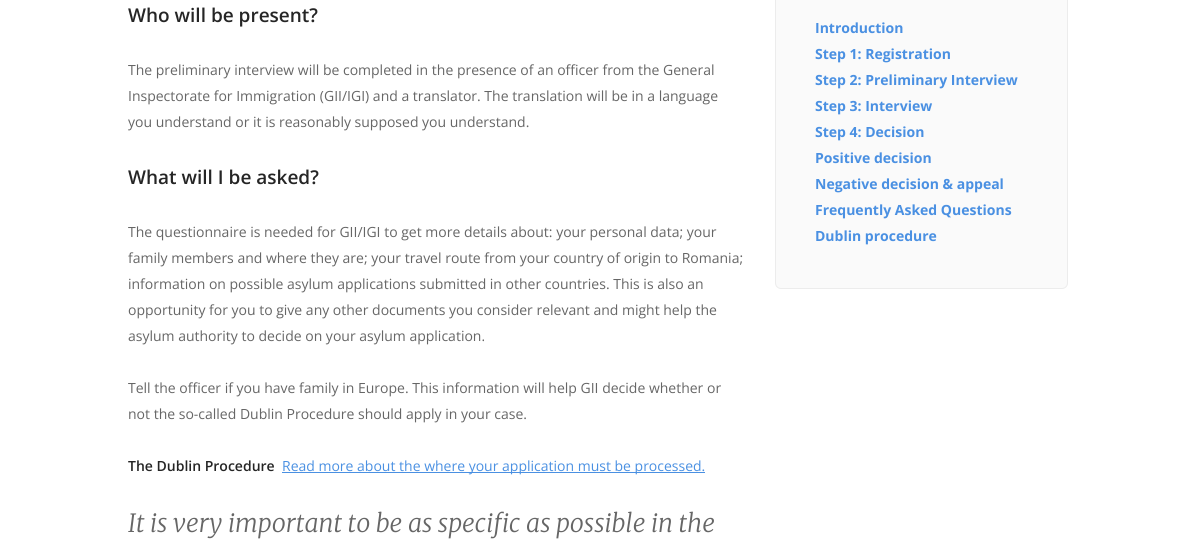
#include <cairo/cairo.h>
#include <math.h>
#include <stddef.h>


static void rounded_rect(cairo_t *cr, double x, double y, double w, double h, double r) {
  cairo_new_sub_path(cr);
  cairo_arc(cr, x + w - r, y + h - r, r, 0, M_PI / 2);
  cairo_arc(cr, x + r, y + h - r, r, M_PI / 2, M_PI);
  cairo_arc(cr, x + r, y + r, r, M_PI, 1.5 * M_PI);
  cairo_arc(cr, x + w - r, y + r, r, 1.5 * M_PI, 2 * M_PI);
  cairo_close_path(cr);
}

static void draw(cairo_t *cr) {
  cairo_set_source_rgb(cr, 1, 1, 1);
  cairo_paint(cr);
  cairo_set_source_rgb(cr, 74 / 255.0, 144 / 255.0, 226 / 255.0);
  cairo_rectangle(cr, 282, 472, 423, 1);
  cairo_fill(cr);
  cairo_set_source_rgb(cr, 250 / 255.0, 250 / 255.0, 250 / 255.0);
  rounded_rect(cr, 775.5, -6.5, 292, 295, 5.5);
  cairo_fill_preserve(cr);
  cairo_set_source_rgb(cr, 236 / 255.0, 236 / 255.0, 236 / 255.0);
  cairo_set_line_width(cr, 1);
  cairo_stroke(cr);
  cairo_select_font_face(cr, "Open Sans SemiBold", CAIRO_FONT_SLANT_NORMAL, CAIRO_FONT_WEIGHT_NORMAL);
  cairo_set_font_size(cr, 19);
  cairo_set_source_rgb(cr, 37 / 255.0, 37 / 255.0, 37 / 255.0);
  cairo_move_to(cr, 128, 22);
  cairo_show_text(cr, "Who will be present?");
  cairo_select_font_face(cr, "Open Sans", CAIRO_FONT_SLANT_NORMAL, CAIRO_FONT_WEIGHT_NORMAL);
  cairo_set_font_size(cr, 14);
  cairo_set_source_rgb(cr, 102 / 255.0, 102 / 255.0, 102 / 255.0);
  cairo_move_to(cr, 128, 75);
  cairo_show_text(cr, "The preliminary interview will be completed in the presence of an officer from the General");
  cairo_move_to(cr, 128, 101);
  cairo_show_text(cr, "Inspectorate for Immigration (GII/IGI) and a translator. The translation will be in a language");
  cairo_move_to(cr, 128, 127);
  cairo_show_text(cr, "you understand or it is reasonably supposed you understand.");
  cairo_select_font_face(cr, "Open Sans SemiBold", CAIRO_FONT_SLANT_NORMAL, CAIRO_FONT_WEIGHT_NORMAL);
  cairo_set_font_size(cr, 19);
  cairo_set_source_rgb(cr, 37 / 255.0, 37 / 255.0, 37 / 255.0);
  cairo_move_to(cr, 128, 184);
  cairo_show_text(cr, "What will I be asked?");
  cairo_select_font_face(cr, "Open Sans", CAIRO_FONT_SLANT_NORMAL, CAIRO_FONT_WEIGHT_NORMAL);
  cairo_set_font_size(cr, 14);
  cairo_set_source_rgb(cr, 102 / 255.0, 102 / 255.0, 102 / 255.0);
  cairo_move_to(cr, 128, 237);
  cairo_show_text(cr, "The questionnaire is needed for GII/IGI to get more details about: your personal data; your");
  cairo_move_to(cr, 128, 263);
  cairo_show_text(cr, "family members and where they are; your travel route from your country of origin to Romania;");
  cairo_move_to(cr, 128, 289);
  cairo_show_text(cr, "information on possible asylum applications submitted in other countries. This is also an");
  cairo_move_to(cr, 128, 315);
  cairo_show_text(cr, "opportunity for you to give any other documents you consider relevant and might help the");
  cairo_move_to(cr, 128, 341);
  cairo_show_text(cr, "asylum authority to decide on your asylum application.");
  cairo_move_to(cr, 128, 393);
  cairo_show_text(cr, "Tell the officer if you have family in Europe. This information will help GII decide whether or");
  cairo_move_to(cr, 128, 419);
  cairo_show_text(cr, "not the so-called Dublin Procedure should apply in your case.");
  cairo_select_font_face(cr, "Open Sans SemiBold", CAIRO_FONT_SLANT_NORMAL, CAIRO_FONT_WEIGHT_NORMAL);
  cairo_set_source_rgb(cr, 37 / 255.0, 37 / 255.0, 37 / 255.0);
  cairo_move_to(cr, 128, 471);
  cairo_show_text(cr, "The Dublin Procedure");
  cairo_select_font_face(cr, "Open Sans", CAIRO_FONT_SLANT_NORMAL, CAIRO_FONT_WEIGHT_NORMAL);
  cairo_set_source_rgb(cr, 74 / 255.0, 144 / 255.0, 226 / 255.0);
  cairo_move_to(cr, 282, 471);
  cairo_show_text(cr, "Read more about the where your application must be processed.");
  cairo_select_font_face(cr, "Merriweather Light", CAIRO_FONT_SLANT_ITALIC, CAIRO_FONT_WEIGHT_NORMAL);
  cairo_set_font_size(cr, 25);
  cairo_set_source_rgb(cr, 102 / 255.0, 102 / 255.0, 102 / 255.0);
  cairo_move_to(cr, 128, 532);
  cairo_show_text(cr, "It is very important to be as specific as possible in the");
  cairo_select_font_face(cr, "Open Sans", CAIRO_FONT_SLANT_NORMAL, CAIRO_FONT_WEIGHT_BOLD);
  cairo_set_font_size(cr, 14);
  cairo_set_source_rgb(cr, 74 / 255.0, 144 / 255.0, 226 / 255.0);
  cairo_move_to(cr, 815, 33);
  cairo_show_text(cr, "Introduction");
  cairo_move_to(cr, 815, 59);
  cairo_show_text(cr, "Step 1: Registration");
  cairo_move_to(cr, 815, 85);
  cairo_show_text(cr, "Step 2: Preliminary Interview");
  cairo_move_to(cr, 815, 111);
  cairo_show_text(cr, "Step 3: Interview");
  cairo_move_to(cr, 815, 137);
  cairo_show_text(cr, "Step 4: Decision");
  cairo_move_to(cr, 815, 163);
  cairo_show_text(cr, "Positive decision");
  cairo_move_to(cr, 815, 189);
  cairo_show_text(cr, "Negative decision & appeal");
  cairo_move_to(cr, 815, 215);
  cairo_show_text(cr, "Frequently Asked Questions");
  cairo_move_to(cr, 815, 241);
  cairo_show_text(cr, "Dublin procedure");
}

int main(void) {
  cairo_surface_t *surface = cairo_image_surface_create(CAIRO_FORMAT_RGB24, 1196, 548);
  cairo_t *cr = cairo_create(surface);
  cairo_font_options_t *options = cairo_font_options_create();
  cairo_font_options_set_hint_metrics(options, CAIRO_HINT_METRICS_OFF);
  cairo_font_options_set_hint_style(options, CAIRO_HINT_STYLE_NONE);
  cairo_set_font_options(cr, options);
  cairo_set_miter_limit(cr, 4);
  draw(cr);
  cairo_surface_write_to_png(surface, "out.png");
  cairo_font_options_destroy(options);
  cairo_destroy(cr);
  cairo_surface_destroy(surface);
  return 0;
}
